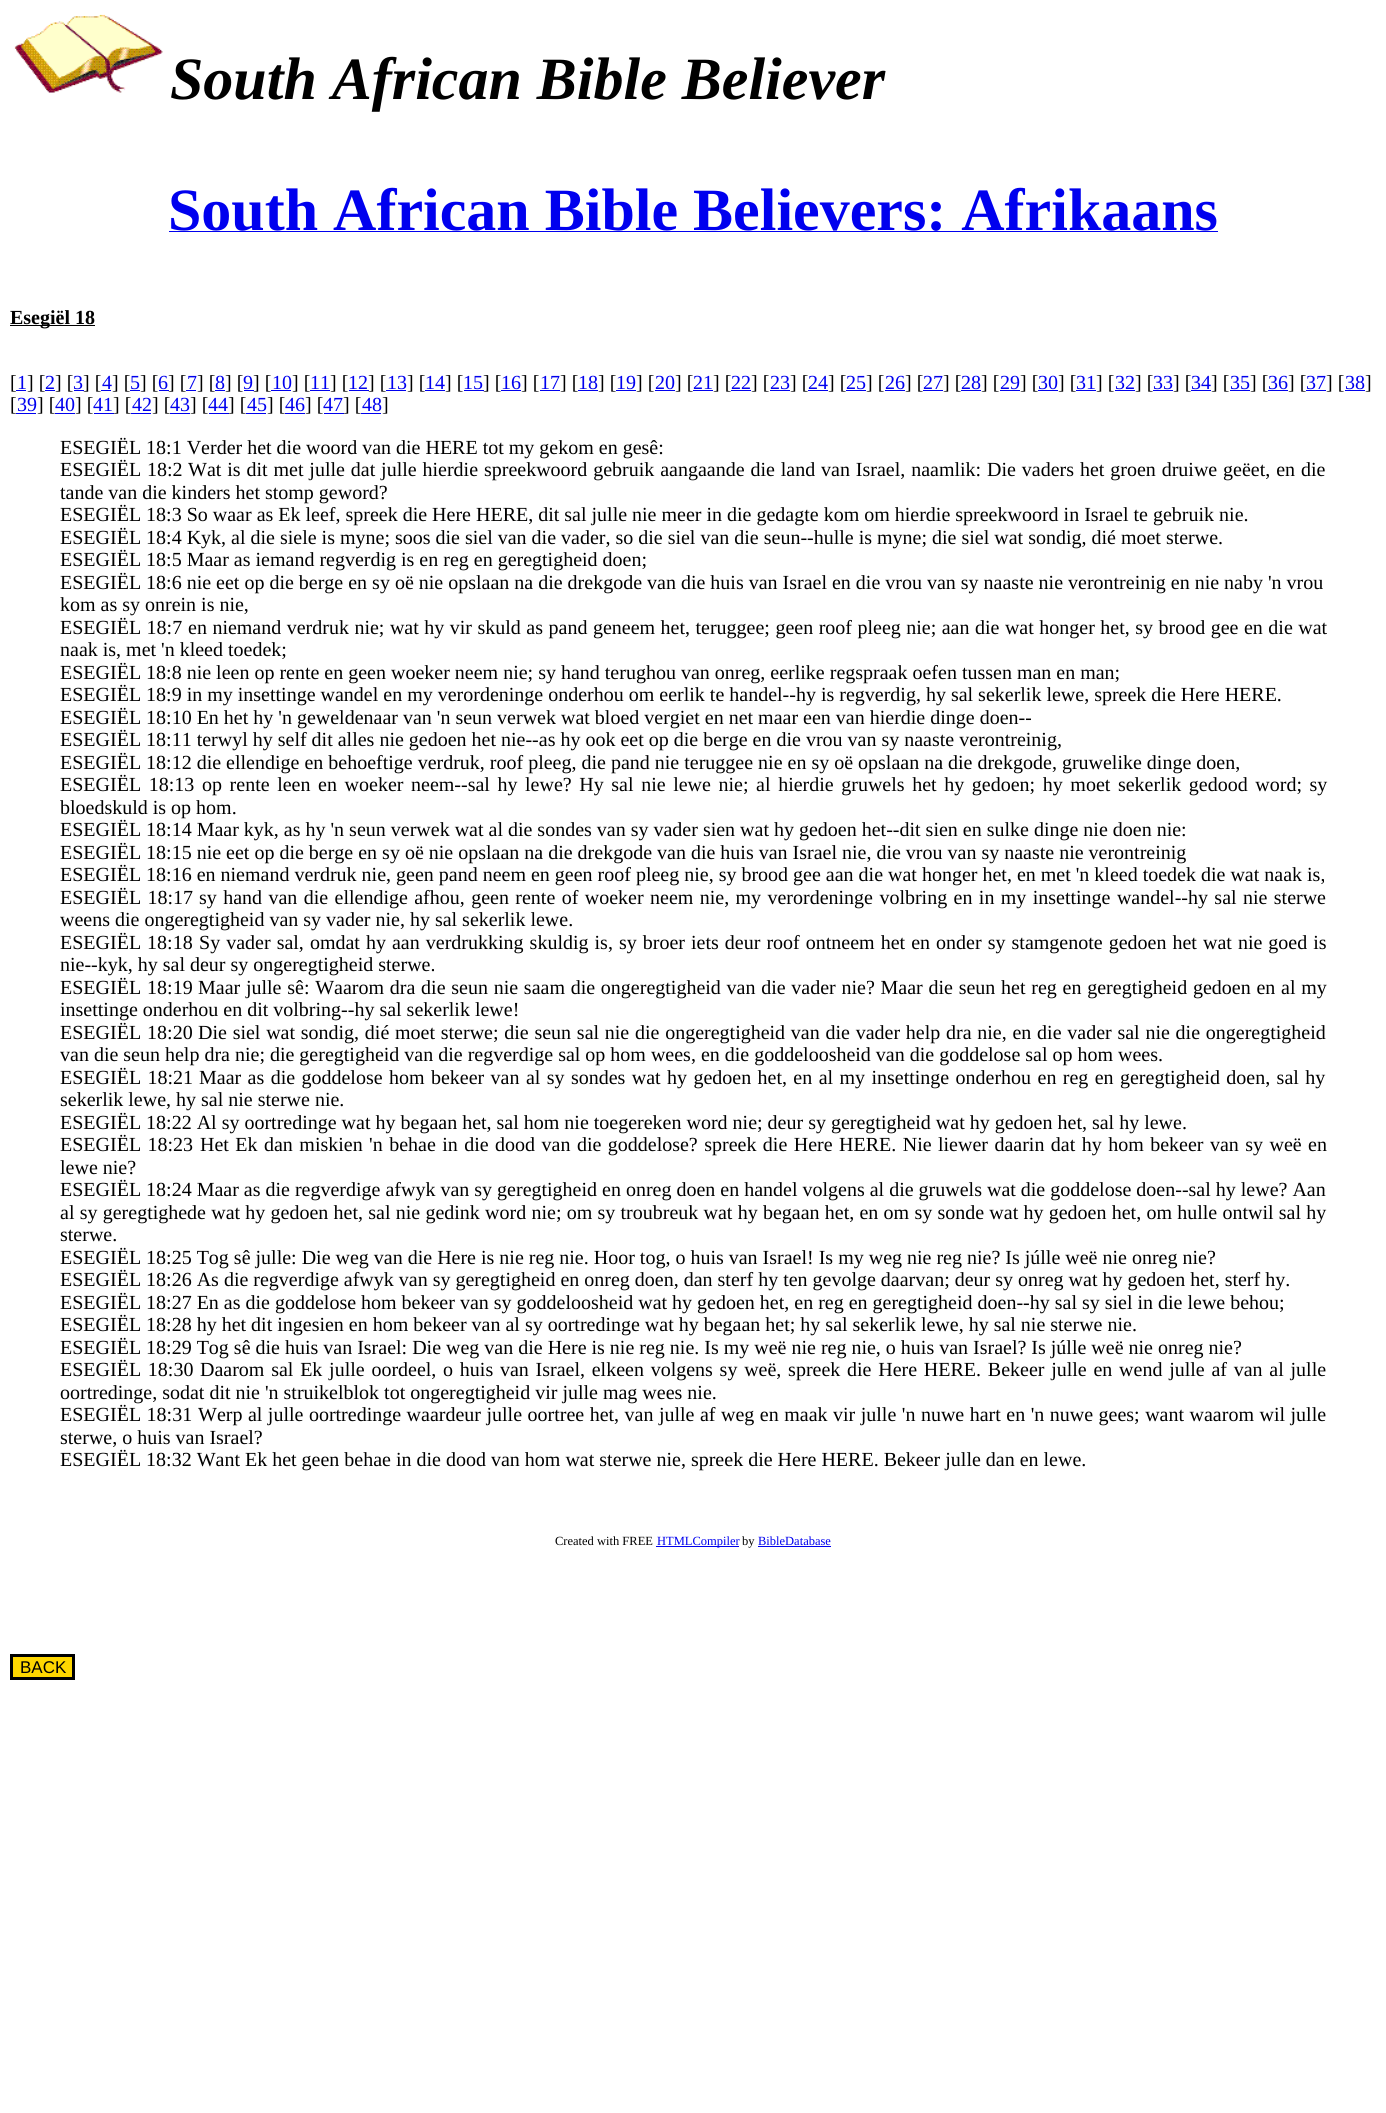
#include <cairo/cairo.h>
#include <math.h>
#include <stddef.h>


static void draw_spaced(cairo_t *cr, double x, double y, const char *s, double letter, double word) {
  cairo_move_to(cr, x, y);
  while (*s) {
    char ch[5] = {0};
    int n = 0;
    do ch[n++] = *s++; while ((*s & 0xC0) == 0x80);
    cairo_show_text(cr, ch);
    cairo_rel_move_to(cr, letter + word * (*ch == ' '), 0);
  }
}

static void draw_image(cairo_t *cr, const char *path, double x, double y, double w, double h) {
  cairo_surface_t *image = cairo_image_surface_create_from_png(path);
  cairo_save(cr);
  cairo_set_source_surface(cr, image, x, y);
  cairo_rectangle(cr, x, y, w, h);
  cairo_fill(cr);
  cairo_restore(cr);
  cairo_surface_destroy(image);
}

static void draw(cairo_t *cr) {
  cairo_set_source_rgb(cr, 1, 1, 1);
  cairo_paint(cr);
  draw_image(cr, "images/1.png", 14, 14, 149, 79);
  cairo_set_source_rgb(cr, 0, 0, 238 / 255.0);
  cairo_rectangle(cr, 169, 231, 1049, 1);
  cairo_fill(cr);
  cairo_set_source_rgb(cr, 0, 0, 0);
  cairo_rectangle(cr, 10, 325, 85, 1);
  cairo_fill(cr);
  cairo_set_source_rgb(cr, 0, 0, 238 / 255.0);
  cairo_rectangle(cr, 16, 390, 10, 1);
  cairo_fill(cr);
  cairo_rectangle(cr, 45, 390, 10, 1);
  cairo_fill(cr);
  cairo_rectangle(cr, 74, 390, 10, 1);
  cairo_fill(cr);
  cairo_rectangle(cr, 101, 390, 10, 1);
  cairo_fill(cr);
  cairo_rectangle(cr, 130, 390, 10, 1);
  cairo_fill(cr);
  cairo_rectangle(cr, 159, 390, 10, 1);
  cairo_fill(cr);
  cairo_rectangle(cr, 186, 390, 10, 1);
  cairo_fill(cr);
  cairo_rectangle(cr, 215, 390, 10, 1);
  cairo_fill(cr);
  cairo_rectangle(cr, 244, 390, 10, 1);
  cairo_fill(cr);
  cairo_rectangle(cr, 271, 390, 20, 1);
  cairo_fill(cr);
  cairo_rectangle(cr, 310, 390, 20, 1);
  cairo_fill(cr);
  cairo_rectangle(cr, 349, 390, 20, 1);
  cairo_fill(cr);
  cairo_rectangle(cr, 386, 390, 20, 1);
  cairo_fill(cr);
  cairo_rectangle(cr, 425, 390, 20, 1);
  cairo_fill(cr);
  cairo_rectangle(cr, 464, 390, 20, 1);
  cairo_fill(cr);
  cairo_rectangle(cr, 501, 390, 20, 1);
  cairo_fill(cr);
  cairo_rectangle(cr, 540, 390, 20, 1);
  cairo_fill(cr);
  cairo_rectangle(cr, 578, 390, 20, 1);
  cairo_fill(cr);
  cairo_rectangle(cr, 616, 390, 20, 1);
  cairo_fill(cr);
  cairo_rectangle(cr, 655, 390, 20, 1);
  cairo_fill(cr);
  cairo_rectangle(cr, 693, 390, 20, 1);
  cairo_fill(cr);
  cairo_rectangle(cr, 731, 390, 20, 1);
  cairo_fill(cr);
  cairo_rectangle(cr, 770, 390, 20, 1);
  cairo_fill(cr);
  cairo_rectangle(cr, 808, 390, 20, 1);
  cairo_fill(cr);
  cairo_rectangle(cr, 846, 390, 20, 1);
  cairo_fill(cr);
  cairo_rectangle(cr, 885, 390, 20, 1);
  cairo_fill(cr);
  cairo_rectangle(cr, 923, 390, 20, 1);
  cairo_fill(cr);
  cairo_rectangle(cr, 961, 390, 20, 1);
  cairo_fill(cr);
  cairo_rectangle(cr, 1000, 390, 20, 1);
  cairo_fill(cr);
  cairo_rectangle(cr, 1038, 390, 20, 1);
  cairo_fill(cr);
  cairo_rectangle(cr, 1076, 390, 20, 1);
  cairo_fill(cr);
  cairo_rectangle(cr, 1115, 390, 20, 1);
  cairo_fill(cr);
  cairo_rectangle(cr, 1153, 390, 20, 1);
  cairo_fill(cr);
  cairo_rectangle(cr, 1191, 390, 20, 1);
  cairo_fill(cr);
  cairo_rectangle(cr, 1230, 390, 20, 1);
  cairo_fill(cr);
  cairo_rectangle(cr, 1268, 390, 20, 1);
  cairo_fill(cr);
  cairo_rectangle(cr, 1306, 390, 20, 1);
  cairo_fill(cr);
  cairo_rectangle(cr, 1345, 390, 20, 1);
  cairo_fill(cr);
  cairo_rectangle(cr, 16, 413, 20, 1);
  cairo_fill(cr);
  cairo_rectangle(cr, 55, 413, 20, 1);
  cairo_fill(cr);
  cairo_rectangle(cr, 94, 413, 20, 1);
  cairo_fill(cr);
  cairo_rectangle(cr, 131, 413, 20, 1);
  cairo_fill(cr);
  cairo_rectangle(cr, 170, 413, 20, 1);
  cairo_fill(cr);
  cairo_rectangle(cr, 209, 413, 20, 1);
  cairo_fill(cr);
  cairo_rectangle(cr, 246, 413, 20, 1);
  cairo_fill(cr);
  cairo_rectangle(cr, 285, 413, 20, 1);
  cairo_fill(cr);
  cairo_rectangle(cr, 324, 413, 20, 1);
  cairo_fill(cr);
  cairo_rectangle(cr, 361, 413, 20, 1);
  cairo_fill(cr);
  cairo_rectangle(cr, 656, 1546, 83, 1);
  cairo_fill(cr);
  cairo_rectangle(cr, 758, 1546, 73, 1);
  cairo_fill(cr);
  cairo_set_source_rgb(cr, 1, 215 / 255.0, 0);
  cairo_rectangle(cr, 11.5, 1655.5, 62, 23);
  cairo_fill_preserve(cr);
  cairo_set_source_rgb(cr, 0, 0, 0);
  cairo_set_line_width(cr, 3);
  cairo_stroke(cr);
  cairo_select_font_face(cr, "Liberation Serif", CAIRO_FONT_SLANT_ITALIC, CAIRO_FONT_WEIGHT_BOLD);
  cairo_set_font_size(cr, 60);
  cairo_move_to(cr, 170, 99);
  cairo_show_text(cr, "South African Bible Believer");
  cairo_select_font_face(cr, "Liberation Serif", CAIRO_FONT_SLANT_NORMAL, CAIRO_FONT_WEIGHT_BOLD);
  cairo_set_source_rgb(cr, 0, 0, 238 / 255.0);
  cairo_move_to(cr, 168, 230);
  cairo_show_text(cr, "South African Bible Believers: Afrikaans");
  cairo_set_font_size(cr, 20);
  cairo_set_source_rgb(cr, 0, 0, 0);
  cairo_move_to(cr, 10, 324);
  cairo_show_text(cr, "Esegiël 18");
  cairo_select_font_face(cr, "Liberation Serif", CAIRO_FONT_SLANT_NORMAL, CAIRO_FONT_WEIGHT_NORMAL);
  cairo_move_to(cr, 10, 389);
  cairo_show_text(cr, "[");
  cairo_set_source_rgb(cr, 0, 0, 238 / 255.0);
  cairo_move_to(cr, 17, 389);
  cairo_show_text(cr, "1");
  cairo_set_source_rgb(cr, 0, 0, 0);
  cairo_move_to(cr, 27, 389);
  cairo_show_text(cr, "] [");
  cairo_set_source_rgb(cr, 0, 0, 238 / 255.0);
  cairo_move_to(cr, 45, 389);
  cairo_show_text(cr, "2");
  cairo_set_source_rgb(cr, 0, 0, 0);
  cairo_move_to(cr, 55, 389);
  cairo_show_text(cr, "] [");
  cairo_set_source_rgb(cr, 0, 0, 238 / 255.0);
  cairo_move_to(cr, 73, 389);
  cairo_show_text(cr, "3");
  cairo_set_source_rgb(cr, 0, 0, 0);
  cairo_move_to(cr, 83, 389);
  cairo_show_text(cr, "] [");
  cairo_set_source_rgb(cr, 0, 0, 238 / 255.0);
  cairo_move_to(cr, 102, 389);
  cairo_show_text(cr, "4");
  cairo_set_source_rgb(cr, 0, 0, 0);
  cairo_move_to(cr, 112, 389);
  cairo_show_text(cr, "] [");
  cairo_set_source_rgb(cr, 0, 0, 238 / 255.0);
  cairo_move_to(cr, 130, 389);
  cairo_show_text(cr, "5");
  cairo_set_source_rgb(cr, 0, 0, 0);
  cairo_move_to(cr, 140, 389);
  cairo_show_text(cr, "] [");
  cairo_set_source_rgb(cr, 0, 0, 238 / 255.0);
  cairo_move_to(cr, 158, 389);
  cairo_show_text(cr, "6");
  cairo_set_source_rgb(cr, 0, 0, 0);
  cairo_move_to(cr, 168, 389);
  cairo_show_text(cr, "] [");
  cairo_set_source_rgb(cr, 0, 0, 238 / 255.0);
  cairo_move_to(cr, 187, 389);
  cairo_show_text(cr, "7");
  cairo_set_source_rgb(cr, 0, 0, 0);
  cairo_move_to(cr, 197, 389);
  cairo_show_text(cr, "] [");
  cairo_set_source_rgb(cr, 0, 0, 238 / 255.0);
  cairo_move_to(cr, 215, 389);
  cairo_show_text(cr, "8");
  cairo_set_source_rgb(cr, 0, 0, 0);
  cairo_move_to(cr, 225, 389);
  cairo_show_text(cr, "] [");
  cairo_set_source_rgb(cr, 0, 0, 238 / 255.0);
  cairo_move_to(cr, 243, 389);
  cairo_show_text(cr, "9");
  cairo_set_source_rgb(cr, 0, 0, 0);
  cairo_move_to(cr, 253, 389);
  cairo_show_text(cr, "] [");
  cairo_set_source_rgb(cr, 0, 0, 238 / 255.0);
  cairo_move_to(cr, 272, 389);
  cairo_show_text(cr, "10");
  cairo_set_source_rgb(cr, 0, 0, 0);
  cairo_move_to(cr, 292, 389);
  cairo_show_text(cr, "] [");
  cairo_set_source_rgb(cr, 0, 0, 238 / 255.0);
  cairo_move_to(cr, 310, 389);
  cairo_show_text(cr, "11");
  cairo_set_source_rgb(cr, 0, 0, 0);
  cairo_move_to(cr, 330, 389);
  cairo_show_text(cr, "] [");
  cairo_set_source_rgb(cr, 0, 0, 238 / 255.0);
  cairo_move_to(cr, 348, 389);
  cairo_show_text(cr, "12");
  cairo_set_source_rgb(cr, 0, 0, 0);
  cairo_move_to(cr, 368, 389);
  cairo_show_text(cr, "] [");
  cairo_set_source_rgb(cr, 0, 0, 238 / 255.0);
  cairo_move_to(cr, 387, 389);
  cairo_show_text(cr, "13");
  cairo_set_source_rgb(cr, 0, 0, 0);
  cairo_move_to(cr, 407, 389);
  cairo_show_text(cr, "] [");
  cairo_set_source_rgb(cr, 0, 0, 238 / 255.0);
  cairo_move_to(cr, 425, 389);
  cairo_show_text(cr, "14");
  cairo_set_source_rgb(cr, 0, 0, 0);
  cairo_move_to(cr, 445, 389);
  cairo_show_text(cr, "] [");
  cairo_set_source_rgb(cr, 0, 0, 238 / 255.0);
  cairo_move_to(cr, 463, 389);
  cairo_show_text(cr, "15");
  cairo_set_source_rgb(cr, 0, 0, 0);
  cairo_move_to(cr, 483, 389);
  cairo_show_text(cr, "] [");
  cairo_set_source_rgb(cr, 0, 0, 238 / 255.0);
  cairo_move_to(cr, 501, 389);
  cairo_show_text(cr, "16");
  cairo_set_source_rgb(cr, 0, 0, 0);
  cairo_move_to(cr, 521, 389);
  cairo_show_text(cr, "] [");
  cairo_set_source_rgb(cr, 0, 0, 238 / 255.0);
  cairo_move_to(cr, 540, 389);
  cairo_show_text(cr, "17");
  cairo_set_source_rgb(cr, 0, 0, 0);
  cairo_move_to(cr, 560, 389);
  cairo_show_text(cr, "] [");
  cairo_set_source_rgb(cr, 0, 0, 238 / 255.0);
  cairo_move_to(cr, 578, 389);
  cairo_show_text(cr, "18");
  cairo_set_source_rgb(cr, 0, 0, 0);
  cairo_move_to(cr, 598, 389);
  cairo_show_text(cr, "] [");
  cairo_set_source_rgb(cr, 0, 0, 238 / 255.0);
  cairo_move_to(cr, 616, 389);
  cairo_show_text(cr, "19");
  cairo_set_source_rgb(cr, 0, 0, 0);
  cairo_move_to(cr, 636, 389);
  cairo_show_text(cr, "] [");
  cairo_set_source_rgb(cr, 0, 0, 238 / 255.0);
  cairo_move_to(cr, 655, 389);
  cairo_show_text(cr, "20");
  cairo_set_source_rgb(cr, 0, 0, 0);
  cairo_move_to(cr, 675, 389);
  cairo_show_text(cr, "] [");
  cairo_set_source_rgb(cr, 0, 0, 238 / 255.0);
  cairo_move_to(cr, 693, 389);
  cairo_show_text(cr, "21");
  cairo_set_source_rgb(cr, 0, 0, 0);
  cairo_move_to(cr, 713, 389);
  cairo_show_text(cr, "] [");
  cairo_set_source_rgb(cr, 0, 0, 238 / 255.0);
  cairo_move_to(cr, 731, 389);
  cairo_show_text(cr, "22");
  cairo_set_source_rgb(cr, 0, 0, 0);
  cairo_move_to(cr, 751, 389);
  cairo_show_text(cr, "] [");
  cairo_set_source_rgb(cr, 0, 0, 238 / 255.0);
  cairo_move_to(cr, 770, 389);
  cairo_show_text(cr, "23");
  cairo_set_source_rgb(cr, 0, 0, 0);
  cairo_move_to(cr, 790, 389);
  cairo_show_text(cr, "] [");
  cairo_set_source_rgb(cr, 0, 0, 238 / 255.0);
  cairo_move_to(cr, 808, 389);
  cairo_show_text(cr, "24");
  cairo_set_source_rgb(cr, 0, 0, 0);
  cairo_move_to(cr, 828, 389);
  cairo_show_text(cr, "] [");
  cairo_set_source_rgb(cr, 0, 0, 238 / 255.0);
  cairo_move_to(cr, 846, 389);
  cairo_show_text(cr, "25");
  cairo_set_source_rgb(cr, 0, 0, 0);
  cairo_move_to(cr, 866, 389);
  cairo_show_text(cr, "] [");
  cairo_set_source_rgb(cr, 0, 0, 238 / 255.0);
  cairo_move_to(cr, 885, 389);
  cairo_show_text(cr, "26");
  cairo_set_source_rgb(cr, 0, 0, 0);
  cairo_move_to(cr, 905, 389);
  cairo_show_text(cr, "] [");
  cairo_set_source_rgb(cr, 0, 0, 238 / 255.0);
  cairo_move_to(cr, 923, 389);
  cairo_show_text(cr, "27");
  cairo_set_source_rgb(cr, 0, 0, 0);
  cairo_move_to(cr, 943, 389);
  cairo_show_text(cr, "] [");
  cairo_set_source_rgb(cr, 0, 0, 238 / 255.0);
  cairo_move_to(cr, 961, 389);
  cairo_show_text(cr, "28");
  cairo_set_source_rgb(cr, 0, 0, 0);
  cairo_move_to(cr, 981, 389);
  cairo_show_text(cr, "] [");
  cairo_set_source_rgb(cr, 0, 0, 238 / 255.0);
  cairo_move_to(cr, 1000, 389);
  cairo_show_text(cr, "29");
  cairo_set_source_rgb(cr, 0, 0, 0);
  cairo_move_to(cr, 1020, 389);
  cairo_show_text(cr, "] [");
  cairo_set_source_rgb(cr, 0, 0, 238 / 255.0);
  cairo_move_to(cr, 1038, 389);
  cairo_show_text(cr, "30");
  cairo_set_source_rgb(cr, 0, 0, 0);
  cairo_move_to(cr, 1058, 389);
  cairo_show_text(cr, "] [");
  cairo_set_source_rgb(cr, 0, 0, 238 / 255.0);
  cairo_move_to(cr, 1076, 389);
  cairo_show_text(cr, "31");
  cairo_set_source_rgb(cr, 0, 0, 0);
  cairo_move_to(cr, 1096, 389);
  cairo_show_text(cr, "] [");
  cairo_set_source_rgb(cr, 0, 0, 238 / 255.0);
  cairo_move_to(cr, 1115, 389);
  cairo_show_text(cr, "32");
  cairo_set_source_rgb(cr, 0, 0, 0);
  cairo_move_to(cr, 1135, 389);
  cairo_show_text(cr, "] [");
  cairo_set_source_rgb(cr, 0, 0, 238 / 255.0);
  cairo_move_to(cr, 1153, 389);
  cairo_show_text(cr, "33");
  cairo_set_source_rgb(cr, 0, 0, 0);
  cairo_move_to(cr, 1173, 389);
  cairo_show_text(cr, "] [");
  cairo_set_source_rgb(cr, 0, 0, 238 / 255.0);
  cairo_move_to(cr, 1191, 389);
  cairo_show_text(cr, "34");
  cairo_set_source_rgb(cr, 0, 0, 0);
  cairo_move_to(cr, 1211, 389);
  cairo_show_text(cr, "] [");
  cairo_set_source_rgb(cr, 0, 0, 238 / 255.0);
  cairo_move_to(cr, 1230, 389);
  cairo_show_text(cr, "35");
  cairo_set_source_rgb(cr, 0, 0, 0);
  cairo_move_to(cr, 1250, 389);
  cairo_show_text(cr, "] [");
  cairo_set_source_rgb(cr, 0, 0, 238 / 255.0);
  cairo_move_to(cr, 1268, 389);
  cairo_show_text(cr, "36");
  cairo_set_source_rgb(cr, 0, 0, 0);
  cairo_move_to(cr, 1288, 389);
  cairo_show_text(cr, "] [");
  cairo_set_source_rgb(cr, 0, 0, 238 / 255.0);
  cairo_move_to(cr, 1306, 389);
  cairo_show_text(cr, "37");
  cairo_set_source_rgb(cr, 0, 0, 0);
  cairo_move_to(cr, 1326, 389);
  cairo_show_text(cr, "] [");
  cairo_set_source_rgb(cr, 0, 0, 238 / 255.0);
  cairo_move_to(cr, 1345, 389);
  cairo_show_text(cr, "38");
  cairo_set_source_rgb(cr, 0, 0, 0);
  cairo_move_to(cr, 1365, 389);
  cairo_show_text(cr, "]");
  cairo_move_to(cr, 10, 411);
  cairo_show_text(cr, "[");
  cairo_set_source_rgb(cr, 0, 0, 238 / 255.0);
  cairo_move_to(cr, 17, 411);
  cairo_show_text(cr, "39");
  cairo_set_source_rgb(cr, 0, 0, 0);
  cairo_move_to(cr, 37, 411);
  cairo_show_text(cr, "] [");
  cairo_set_source_rgb(cr, 0, 0, 238 / 255.0);
  cairo_move_to(cr, 55, 411);
  cairo_show_text(cr, "40");
  cairo_set_source_rgb(cr, 0, 0, 0);
  cairo_move_to(cr, 75, 411);
  cairo_show_text(cr, "] [");
  cairo_set_source_rgb(cr, 0, 0, 238 / 255.0);
  cairo_move_to(cr, 93, 411);
  cairo_show_text(cr, "41");
  cairo_set_source_rgb(cr, 0, 0, 0);
  cairo_move_to(cr, 113, 411);
  cairo_show_text(cr, "] [");
  cairo_set_source_rgb(cr, 0, 0, 238 / 255.0);
  cairo_move_to(cr, 132, 411);
  cairo_show_text(cr, "42");
  cairo_set_source_rgb(cr, 0, 0, 0);
  cairo_move_to(cr, 152, 411);
  cairo_show_text(cr, "] [");
  cairo_set_source_rgb(cr, 0, 0, 238 / 255.0);
  cairo_move_to(cr, 170, 411);
  cairo_show_text(cr, "43");
  cairo_set_source_rgb(cr, 0, 0, 0);
  cairo_move_to(cr, 190, 411);
  cairo_show_text(cr, "] [");
  cairo_set_source_rgb(cr, 0, 0, 238 / 255.0);
  cairo_move_to(cr, 208, 411);
  cairo_show_text(cr, "44");
  cairo_set_source_rgb(cr, 0, 0, 0);
  cairo_move_to(cr, 228, 411);
  cairo_show_text(cr, "] [");
  cairo_set_source_rgb(cr, 0, 0, 238 / 255.0);
  cairo_move_to(cr, 247, 411);
  cairo_show_text(cr, "45");
  cairo_set_source_rgb(cr, 0, 0, 0);
  cairo_move_to(cr, 267, 411);
  cairo_show_text(cr, "] [");
  cairo_set_source_rgb(cr, 0, 0, 238 / 255.0);
  cairo_move_to(cr, 285, 411);
  cairo_show_text(cr, "46");
  cairo_set_source_rgb(cr, 0, 0, 0);
  cairo_move_to(cr, 305, 411);
  cairo_show_text(cr, "] [");
  cairo_set_source_rgb(cr, 0, 0, 238 / 255.0);
  cairo_move_to(cr, 323, 411);
  cairo_show_text(cr, "47");
  cairo_set_source_rgb(cr, 0, 0, 0);
  cairo_move_to(cr, 343, 411);
  cairo_show_text(cr, "] [");
  cairo_set_source_rgb(cr, 0, 0, 238 / 255.0);
  cairo_move_to(cr, 362, 411);
  cairo_show_text(cr, "48");
  cairo_set_source_rgb(cr, 0, 0, 0);
  cairo_move_to(cr, 382, 411);
  cairo_show_text(cr, "]");
  cairo_move_to(cr, 60, 454);
  cairo_show_text(cr, "ESEGIËL 18:1 Verder het die woord van die HERE tot my gekom en gesê:");
  draw_spaced(cr, 60, 476, "ESEGIËL 18:2", 0, 0.9);
  draw_spaced(cr, 188, 476, "Wat is dit met julle dat julle hierdie spreekwoord gebruik aangaande die land van Israel, naamlik: Die vaders het groen druiwe geëet, en die", 0, 0.9);
  cairo_move_to(cr, 60, 499);
  cairo_show_text(cr, "tande van die kinders het stomp geword?");
  cairo_move_to(cr, 60, 521);
  cairo_show_text(cr, "ESEGIËL 18:3 So waar as Ek leef, spreek die Here HERE, dit sal julle nie meer in die gedagte kom om hierdie spreekwoord in Israel te gebruik nie.");
  cairo_move_to(cr, 60, 544);
  cairo_show_text(cr, "ESEGIËL 18:4 Kyk, al die siele is myne; soos die siel van die vader, so die siel van die seun--hulle is myne; die siel wat sondig, dié moet sterwe.");
  cairo_move_to(cr, 60, 566);
  cairo_show_text(cr, "ESEGIËL 18:5 Maar as iemand regverdig is en reg en geregtigheid doen;");
  cairo_move_to(cr, 60, 589);
  cairo_show_text(cr, "ESEGIËL 18:6 nie eet op die berge en sy oë nie opslaan na die drekgode van die huis van Israel en die vrou van sy naaste nie verontreinig en nie naby 'n vrou");
  cairo_move_to(cr, 60, 611);
  cairo_show_text(cr, "kom as sy onrein is nie,");
  draw_spaced(cr, 60, 634, "ESEGIËL 18:7", 0, 0.5);
  draw_spaced(cr, 188, 634, "en niemand verdruk nie; wat hy vir skuld as pand geneem het, teruggee; geen roof pleeg nie; aan die wat honger het, sy brood gee en die wat", 0, 0.5);
  cairo_move_to(cr, 60, 656);
  cairo_show_text(cr, "naak is, met 'n kleed toedek;");
  cairo_move_to(cr, 60, 679);
  cairo_show_text(cr, "ESEGIËL 18:8 nie leen op rente en geen woeker neem nie; sy hand terughou van onreg, eerlike regspraak oefen tussen man en man;");
  cairo_move_to(cr, 60, 701);
  cairo_show_text(cr, "ESEGIËL 18:9 in my insettinge wandel en my verordeninge onderhou om eerlik te handel--hy is regverdig, hy sal sekerlik lewe, spreek die Here HERE.");
  cairo_move_to(cr, 60, 724);
  cairo_show_text(cr, "ESEGIËL 18:10 En het hy 'n geweldenaar van 'n seun verwek wat bloed vergiet en net maar een van hierdie dinge doen--");
  cairo_move_to(cr, 60, 746);
  cairo_show_text(cr, "ESEGIËL 18:11 terwyl hy self dit alles nie gedoen het nie--as hy ook eet op die berge en die vrou van sy naaste verontreinig,");
  cairo_move_to(cr, 60, 769);
  cairo_show_text(cr, "ESEGIËL 18:12 die ellendige en behoeftige verdruk, roof pleeg, die pand nie teruggee nie en sy oë opslaan na die drekgode, gruwelike dinge doen,");
  draw_spaced(cr, 60, 791, "ESEGIËL 18:13", 0, 2.6);
  draw_spaced(cr, 202, 791, "op rente leen en woeker neem--sal hy lewe? Hy sal nie lewe nie; al hierdie gruwels het hy gedoen; hy moet sekerlik gedood word; sy", 0, 2.6);
  cairo_move_to(cr, 60, 814);
  cairo_show_text(cr, "bloedskuld is op hom.");
  cairo_move_to(cr, 60, 836);
  cairo_show_text(cr, "ESEGIËL 18:14 Maar kyk, as hy 'n seun verwek wat al die sondes van sy vader sien wat hy gedoen het--dit sien en sulke dinge nie doen nie:");
  cairo_move_to(cr, 60, 859);
  cairo_show_text(cr, "ESEGIËL 18:15 nie eet op die berge en sy oë nie opslaan na die drekgode van die huis van Israel nie, die vrou van sy naaste nie verontreinig");
  cairo_move_to(cr, 60, 881);
  cairo_show_text(cr, "ESEGIËL 18:16 en niemand verdruk nie, geen pand neem en geen roof pleeg nie, sy brood gee aan die wat honger het, en met 'n kleed toedek die wat naak is,");
  draw_spaced(cr, 60, 904, "ESEGIËL 18:17", 0, 1.4);
  draw_spaced(cr, 199, 904, "sy hand van die ellendige afhou, geen rente of woeker neem nie, my verordeninge volbring en in my insettinge wandel--hy sal nie sterwe", 0, 1.4);
  cairo_move_to(cr, 60, 926);
  cairo_show_text(cr, "weens die ongeregtigheid van sy vader nie, hy sal sekerlik lewe.");
  draw_spaced(cr, 60, 949, "ESEGIËL 18:18", 0, 1);
  draw_spaced(cr, 199, 949, "Sy vader sal, omdat hy aan verdrukking skuldig is, sy broer iets deur roof ontneem het en onder sy stamgenote gedoen het wat nie goed is", 0, 1.05);
  cairo_move_to(cr, 60, 971);
  cairo_show_text(cr, "nie--kyk, hy sal deur sy ongeregtigheid sterwe.");
  draw_spaced(cr, 60, 994, "ESEGIËL 18:19", 0, 1);
  draw_spaced(cr, 198, 994, "Maar julle sê: Waarom dra die seun nie saam die ongeregtigheid van die vader nie? Maar die seun het reg en geregtigheid gedoen en al my", 0, 0.75);
  cairo_move_to(cr, 60, 1016);
  cairo_show_text(cr, "insettinge onderhou en dit volbring--hy sal sekerlik lewe!");
  draw_spaced(cr, 60, 1039, "ESEGIËL 18:20", 0, 1);
  draw_spaced(cr, 198, 1039, "Die siel wat sondig, dié moet sterwe; die seun sal nie die ongeregtigheid van die vader help dra nie, en die vader sal nie die ongeregtigheid", 0, 0.75);
  cairo_move_to(cr, 60, 1061);
  cairo_show_text(cr, "van die seun help dra nie; die geregtigheid van die regverdige sal op hom wees, en die goddeloosheid van die goddelose sal op hom wees.");
  draw_spaced(cr, 60, 1084, "ESEGIËL 18:21", 0, 1.4);
  draw_spaced(cr, 199, 1084, "Maar as die goddelose hom bekeer van al sy sondes wat hy gedoen het, en al my insettinge onderhou en reg en geregtigheid doen, sal hy", 0, 1.4);
  cairo_move_to(cr, 60, 1106);
  cairo_show_text(cr, "sekerlik lewe, hy sal nie sterwe nie.");
  cairo_move_to(cr, 60, 1129);
  cairo_show_text(cr, "ESEGIËL 18:22 Al sy oortredinge wat hy begaan het, sal hom nie toegereken word nie; deur sy geregtigheid wat hy gedoen het, sal hy lewe.");
  draw_spaced(cr, 60, 1151, "ESEGIËL 18:23", 0, 1.45);
  draw_spaced(cr, 200, 1151, "Het Ek dan miskien 'n behae in die dood van die goddelose? spreek die Here HERE. Nie liewer daarin dat hy hom bekeer van sy weë en", 0, 1.45);
  cairo_move_to(cr, 60, 1174);
  cairo_show_text(cr, "lewe nie?");
  cairo_move_to(cr, 60, 1196);
  cairo_show_text(cr, "ESEGIËL 18:24 Maar as die regverdige afwyk van sy geregtigheid en onreg doen en handel volgens al die gruwels wat die goddelose doen--sal hy lewe? Aan");
  draw_spaced(cr, 60, 1219, "al sy geregtighede wat hy gedoen het, sal nie gedink word nie; om sy troubreuk wat hy begaan het, en om sy sonde wat hy gedoen het, om hulle ontwil sal hy", 0, 0.25);
  cairo_move_to(cr, 60, 1241);
  cairo_show_text(cr, "sterwe.");
  cairo_move_to(cr, 60, 1264);
  cairo_show_text(cr, "ESEGIËL 18:25 Tog sê julle: Die weg van die Here is nie reg nie. Hoor tog, o huis van Israel! Is my weg nie reg nie? Is júlle weë nie onreg nie?");
  cairo_move_to(cr, 60, 1286);
  cairo_show_text(cr, "ESEGIËL 18:26 As die regverdige afwyk van sy geregtigheid en onreg doen, dan sterf hy ten gevolge daarvan; deur sy onreg wat hy gedoen het, sterf hy.");
  cairo_move_to(cr, 60, 1309);
  cairo_show_text(cr, "ESEGIËL 18:27 En as die goddelose hom bekeer van sy goddeloosheid wat hy gedoen het, en reg en geregtigheid doen--hy sal sy siel in die lewe behou;");
  cairo_move_to(cr, 60, 1331);
  cairo_show_text(cr, "ESEGIËL 18:28 hy het dit ingesien en hom bekeer van al sy oortredinge wat hy begaan het; hy sal sekerlik lewe, hy sal nie sterwe nie.");
  cairo_move_to(cr, 60, 1354);
  cairo_show_text(cr, "ESEGIËL 18:29 Tog sê die huis van Israel: Die weg van die Here is nie reg nie. Is my weë nie reg nie, o huis van Israel? Is júlle weë nie onreg nie?");
  draw_spaced(cr, 60, 1376, "ESEGIËL 18:30", 0, 1.75);
  draw_spaced(cr, 200, 1376, "Daarom sal Ek julle oordeel, o huis van Israel, elkeen volgens sy weë, spreek die Here HERE. Bekeer julle en wend julle af van al julle", 0, 1.75);
  cairo_move_to(cr, 60, 1399);
  cairo_show_text(cr, "oortredinge, sodat dit nie 'n struikelblok tot ongeregtigheid vir julle mag wees nie.");
  draw_spaced(cr, 60, 1421, "ESEGIËL 18:31", 0, 0.5);
  draw_spaced(cr, 198, 1421, "Werp al julle oortredinge waardeur julle oortree het, van julle af weg en maak vir julle 'n nuwe hart en 'n nuwe gees; want waarom wil julle", 0, 0.5);
  cairo_move_to(cr, 60, 1444);
  cairo_show_text(cr, "sterwe, o huis van Israel?");
  cairo_move_to(cr, 60, 1466);
  cairo_show_text(cr, "ESEGIËL 18:32 Want Ek het geen behae in die dood van hom wat sterwe nie, spreek die Here HERE. Bekeer julle dan en lewe.");
  cairo_set_font_size(cr, 12.5);
  cairo_move_to(cr, 555, 1545);
  cairo_show_text(cr, "Created with FREE");
  cairo_set_source_rgb(cr, 0, 0, 238 / 255.0);
  cairo_move_to(cr, 657, 1545);
  cairo_show_text(cr, "HTMLCompiler");
  cairo_set_source_rgb(cr, 0, 0, 0);
  cairo_move_to(cr, 742, 1545);
  cairo_show_text(cr, "by");
  cairo_set_source_rgb(cr, 0, 0, 238 / 255.0);
  cairo_move_to(cr, 758, 1545);
  cairo_show_text(cr, "BibleDatabase");
  cairo_select_font_face(cr, "Liberation Sans", CAIRO_FONT_SLANT_NORMAL, CAIRO_FONT_WEIGHT_NORMAL);
  cairo_set_font_size(cr, 17);
  cairo_set_source_rgb(cr, 0, 0, 0);
  cairo_move_to(cr, 20, 1673);
  cairo_show_text(cr, "BACK");
}

int main(void) {
  cairo_surface_t *surface = cairo_image_surface_create(CAIRO_FORMAT_RGB24, 1386, 2113);
  cairo_t *cr = cairo_create(surface);
  cairo_font_options_t *options = cairo_font_options_create();
  cairo_font_options_set_hint_metrics(options, CAIRO_HINT_METRICS_OFF);
  cairo_font_options_set_hint_style(options, CAIRO_HINT_STYLE_NONE);
  cairo_set_font_options(cr, options);
  cairo_set_miter_limit(cr, 4);
  draw(cr);
  cairo_surface_write_to_png(surface, "out.png");
  cairo_font_options_destroy(options);
  cairo_destroy(cr);
  cairo_surface_destroy(surface);
  return 0;
}
